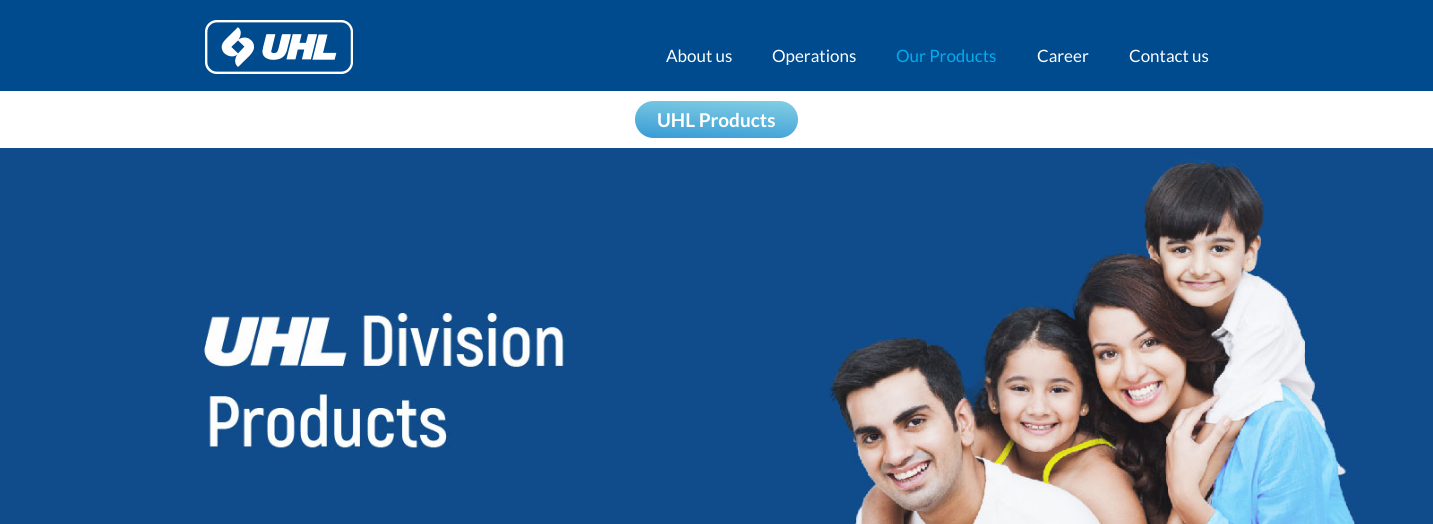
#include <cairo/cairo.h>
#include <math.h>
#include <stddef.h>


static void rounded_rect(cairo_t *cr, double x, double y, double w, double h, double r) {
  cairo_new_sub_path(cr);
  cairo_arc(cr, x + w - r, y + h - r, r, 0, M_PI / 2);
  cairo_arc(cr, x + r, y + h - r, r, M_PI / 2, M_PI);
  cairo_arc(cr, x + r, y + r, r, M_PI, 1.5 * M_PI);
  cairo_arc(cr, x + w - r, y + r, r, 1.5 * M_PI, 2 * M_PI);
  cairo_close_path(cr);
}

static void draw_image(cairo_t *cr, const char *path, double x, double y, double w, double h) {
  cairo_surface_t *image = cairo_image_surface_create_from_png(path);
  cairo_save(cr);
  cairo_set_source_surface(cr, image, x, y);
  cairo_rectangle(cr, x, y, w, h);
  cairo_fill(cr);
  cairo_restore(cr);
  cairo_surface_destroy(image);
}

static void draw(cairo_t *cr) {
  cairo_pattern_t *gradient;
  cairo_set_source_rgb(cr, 1, 1, 1);
  cairo_paint(cr);
  cairo_set_source_rgb(cr, 0, 74 / 255.0, 142 / 255.0);
  cairo_rectangle(cr, 0, 0, 1433, 91);
  cairo_fill(cr);
  draw_image(cr, "images/1.png", 205, 20, 148, 54);
  gradient = cairo_pattern_create_linear(718, 95, 715, 144);
  cairo_pattern_add_color_stop_rgba(gradient, 0, 133 / 255.0, 208 / 255.0, 228 / 255.0, 1);
  cairo_pattern_add_color_stop_rgba(gradient, 1, 54 / 255.0, 154 / 255.0, 213 / 255.0, 1);
  cairo_set_source(cr, gradient);
  cairo_pattern_destroy(gradient);
  rounded_rect(cr, 635, 101, 163, 37, 18.5);
  cairo_fill(cr);
  draw_image(cr, "images/2.png", 0, 148, 1433, 376);
  cairo_select_font_face(cr, "Lato", CAIRO_FONT_SLANT_NORMAL, CAIRO_FONT_WEIGHT_NORMAL);
  cairo_set_font_size(cr, 17);
  cairo_set_source_rgb(cr, 1, 1, 1);
  cairo_move_to(cr, 666, 62);
  cairo_show_text(cr, "About us");
  cairo_move_to(cr, 772, 62);
  cairo_show_text(cr, "Operations");
  cairo_set_source_rgb(cr, 0, 173 / 255.0, 238 / 255.0);
  cairo_move_to(cr, 896, 62);
  cairo_show_text(cr, "Our Products");
  cairo_set_source_rgb(cr, 1, 1, 1);
  cairo_move_to(cr, 1037, 62);
  cairo_show_text(cr, "Career");
  cairo_move_to(cr, 1129, 62);
  cairo_show_text(cr, "Contact us");
  cairo_select_font_face(cr, "Lato", CAIRO_FONT_SLANT_NORMAL, CAIRO_FONT_WEIGHT_BOLD);
  cairo_set_font_size(cr, 19);
  cairo_move_to(cr, 657, 127);
  cairo_show_text(cr, "UHL Products");
}

int main(void) {
  cairo_surface_t *surface = cairo_image_surface_create(CAIRO_FORMAT_RGB24, 1433, 524);
  cairo_t *cr = cairo_create(surface);
  cairo_font_options_t *options = cairo_font_options_create();
  cairo_font_options_set_hint_metrics(options, CAIRO_HINT_METRICS_OFF);
  cairo_font_options_set_hint_style(options, CAIRO_HINT_STYLE_NONE);
  cairo_set_font_options(cr, options);
  cairo_set_miter_limit(cr, 4);
  draw(cr);
  cairo_surface_write_to_png(surface, "out.png");
  cairo_font_options_destroy(options);
  cairo_destroy(cr);
  cairo_surface_destroy(surface);
  return 0;
}
